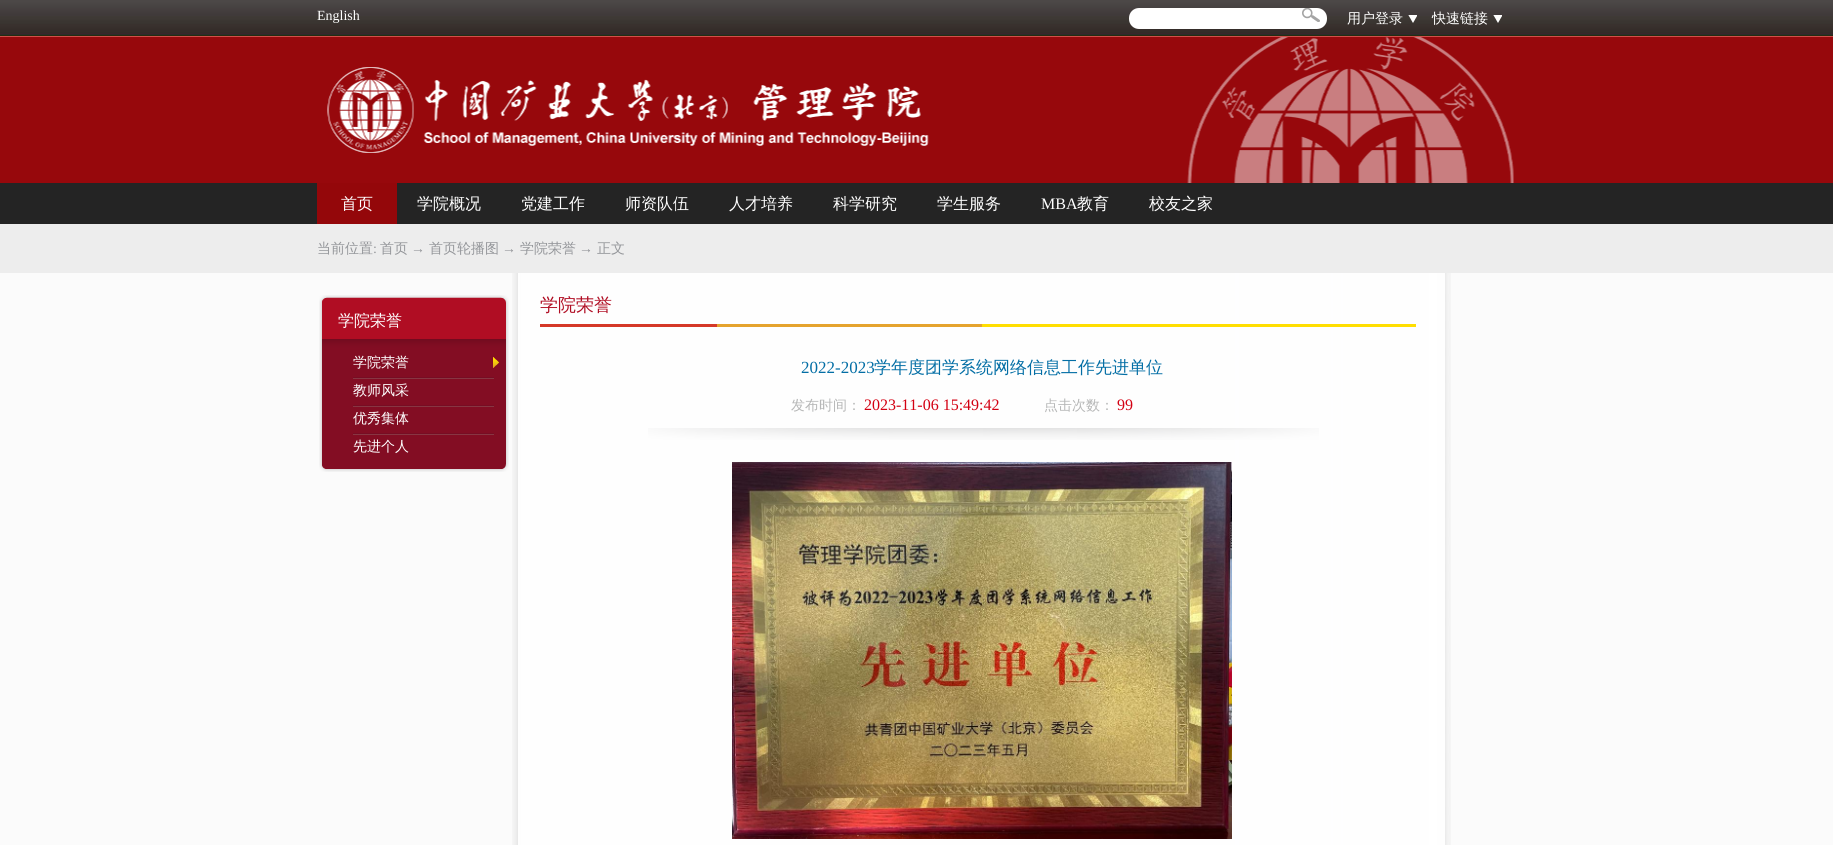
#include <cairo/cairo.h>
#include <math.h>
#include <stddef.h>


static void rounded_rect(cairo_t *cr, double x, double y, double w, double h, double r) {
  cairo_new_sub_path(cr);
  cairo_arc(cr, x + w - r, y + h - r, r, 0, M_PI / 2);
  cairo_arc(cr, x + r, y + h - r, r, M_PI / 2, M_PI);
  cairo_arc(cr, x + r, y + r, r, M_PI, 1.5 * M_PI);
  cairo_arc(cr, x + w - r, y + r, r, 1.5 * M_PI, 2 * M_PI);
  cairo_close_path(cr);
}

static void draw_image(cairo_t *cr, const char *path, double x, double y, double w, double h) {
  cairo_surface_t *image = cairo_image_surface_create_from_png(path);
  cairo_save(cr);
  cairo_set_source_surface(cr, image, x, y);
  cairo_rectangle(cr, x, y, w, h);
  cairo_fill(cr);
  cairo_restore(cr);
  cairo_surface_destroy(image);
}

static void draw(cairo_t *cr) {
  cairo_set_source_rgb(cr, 1, 1, 1);
  cairo_paint(cr);
  draw_image(cr, "images/1.png", 0, 0, 1833, 37);
  cairo_set_source_rgb(cr, 1, 1, 1);
  rounded_rect(cr, 1129, 8, 198, 21, 10);
  cairo_fill(cr);
  draw_image(cr, "images/2.png", 1302, 8, 18, 14);
  draw_image(cr, "images/3.png", 1408, 15, 9, 8);
  draw_image(cr, "images/3.png", 1493, 15, 9, 8);
  cairo_set_source_rgb(cr, 151 / 255.0, 8 / 255.0, 12 / 255.0);
  cairo_rectangle(cr, 0, 37, 1833, 146);
  cairo_fill(cr);
  draw_image(cr, "images/4.png", 327, 37, 1187, 146);
  cairo_set_source_rgb(cr, 36 / 255.0, 36 / 255.0, 36 / 255.0);
  cairo_rectangle(cr, 0, 183, 1833, 41);
  cairo_fill(cr);
  cairo_set_source_rgb(cr, 148 / 255.0, 7 / 255.0, 10 / 255.0);
  cairo_rectangle(cr, 317, 183, 80, 41);
  cairo_fill(cr);
  cairo_set_source_rgb(cr, 251 / 255.0, 251 / 255.0, 251 / 255.0);
  cairo_rectangle(cr, 0, 273, 1833, 572);
  cairo_fill(cr);
  draw_image(cr, "images/5.png", 512, 273, 939, 572);
  cairo_set_source_rgb(cr, 237 / 255.0, 237 / 255.0, 237 / 255.0);
  cairo_rectangle(cr, 0, 224, 1833, 49);
  cairo_fill(cr);
  draw_image(cr, "images/6.png", 319, 295, 190, 54);
  draw_image(cr, "images/7.png", 319, 349, 190, 112);
  draw_image(cr, "images/8.png", 493, 357, 6, 11);
  draw_image(cr, "images/9.png", 353, 377, 141, 2);
  draw_image(cr, "images/9.png", 353, 405, 141, 2);
  draw_image(cr, "images/9.png", 353, 433, 141, 2);
  draw_image(cr, "images/10.png", 319, 461, 190, 11);
  cairo_set_source_rgb(cr, 213 / 255.0, 56 / 255.0, 40 / 255.0);
  cairo_rectangle(cr, 540, 324, 177, 3);
  cairo_fill(cr);
  cairo_set_source_rgb(cr, 229 / 255.0, 163 / 255.0, 45 / 255.0);
  cairo_rectangle(cr, 717, 324, 265, 3);
  cairo_fill(cr);
  cairo_set_source_rgb(cr, 1, 222 / 255.0, 0);
  cairo_rectangle(cr, 982, 324, 434, 3);
  cairo_fill(cr);
  draw_image(cr, "images/11.png", 648, 428, 671, 12);
  draw_image(cr, "images/12.png", 732, 462, 500, 377);
  cairo_select_font_face(cr, "Liberation Serif", CAIRO_FONT_SLANT_NORMAL, CAIRO_FONT_WEIGHT_NORMAL);
  cairo_set_font_size(cr, 14);
  cairo_set_source_rgb(cr, 1, 1, 1);
  cairo_move_to(cr, 317, 20);
  cairo_show_text(cr, "English");
  cairo_select_font_face(cr, "WenQuanYi Zen Hei Medium", CAIRO_FONT_SLANT_NORMAL, CAIRO_FONT_WEIGHT_NORMAL);
  cairo_move_to(cr, 1347, 23);
  cairo_show_text(cr, "用户登录");
  cairo_move_to(cr, 1432, 23);
  cairo_show_text(cr, "快速链接");
  cairo_set_font_size(cr, 16);
  cairo_move_to(cr, 341, 209);
  cairo_show_text(cr, "首页");
  cairo_move_to(cr, 417, 209);
  cairo_show_text(cr, "学院概况");
  cairo_move_to(cr, 521, 209);
  cairo_show_text(cr, "党建工作");
  cairo_move_to(cr, 625, 209);
  cairo_show_text(cr, "师资队伍");
  cairo_move_to(cr, 729, 209);
  cairo_show_text(cr, "人才培养");
  cairo_move_to(cr, 833, 209);
  cairo_show_text(cr, "科学研究");
  cairo_move_to(cr, 937, 209);
  cairo_show_text(cr, "学生服务");
  cairo_select_font_face(cr, "Liberation Serif", CAIRO_FONT_SLANT_NORMAL, CAIRO_FONT_WEIGHT_NORMAL);
  cairo_move_to(cr, 1041, 209);
  cairo_show_text(cr, "MBA");
  cairo_select_font_face(cr, "WenQuanYi Zen Hei Medium", CAIRO_FONT_SLANT_NORMAL, CAIRO_FONT_WEIGHT_NORMAL);
  cairo_move_to(cr, 1077, 209);
  cairo_show_text(cr, "教育");
  cairo_move_to(cr, 1149, 209);
  cairo_show_text(cr, "校友之家");
  cairo_set_font_size(cr, 14);
  cairo_set_source_rgb(cr, 148 / 255.0, 150 / 255.0, 154 / 255.0);
  cairo_move_to(cr, 317, 253);
  cairo_show_text(cr, "当前位置");
  cairo_select_font_face(cr, "Liberation Serif", CAIRO_FONT_SLANT_NORMAL, CAIRO_FONT_WEIGHT_NORMAL);
  cairo_move_to(cr, 373, 253);
  cairo_show_text(cr, ":");
  cairo_select_font_face(cr, "WenQuanYi Zen Hei Medium", CAIRO_FONT_SLANT_NORMAL, CAIRO_FONT_WEIGHT_NORMAL);
  cairo_move_to(cr, 380, 253);
  cairo_show_text(cr, "首页");
  cairo_select_font_face(cr, "Liberation Serif", CAIRO_FONT_SLANT_NORMAL, CAIRO_FONT_WEIGHT_NORMAL);
  cairo_move_to(cr, 411, 253);
  cairo_show_text(cr, "→");
  cairo_select_font_face(cr, "WenQuanYi Zen Hei Medium", CAIRO_FONT_SLANT_NORMAL, CAIRO_FONT_WEIGHT_NORMAL);
  cairo_move_to(cr, 429, 253);
  cairo_show_text(cr, "首页轮播图");
  cairo_select_font_face(cr, "Liberation Serif", CAIRO_FONT_SLANT_NORMAL, CAIRO_FONT_WEIGHT_NORMAL);
  cairo_move_to(cr, 502, 253);
  cairo_show_text(cr, "→");
  cairo_select_font_face(cr, "WenQuanYi Zen Hei Medium", CAIRO_FONT_SLANT_NORMAL, CAIRO_FONT_WEIGHT_NORMAL);
  cairo_move_to(cr, 520, 253);
  cairo_show_text(cr, "学院荣誉");
  cairo_select_font_face(cr, "Liberation Serif", CAIRO_FONT_SLANT_NORMAL, CAIRO_FONT_WEIGHT_NORMAL);
  cairo_move_to(cr, 579, 253);
  cairo_show_text(cr, "→");
  cairo_select_font_face(cr, "WenQuanYi Zen Hei Medium", CAIRO_FONT_SLANT_NORMAL, CAIRO_FONT_WEIGHT_NORMAL);
  cairo_move_to(cr, 597, 253);
  cairo_show_text(cr, "正文");
  cairo_set_font_size(cr, 16);
  cairo_set_source_rgb(cr, 1, 1, 1);
  cairo_move_to(cr, 338, 326);
  cairo_show_text(cr, "学院荣誉");
  cairo_set_font_size(cr, 14);
  cairo_move_to(cr, 353, 367);
  cairo_show_text(cr, "学院荣誉");
  cairo_move_to(cr, 353, 395);
  cairo_show_text(cr, "教师风采");
  cairo_move_to(cr, 353, 423);
  cairo_show_text(cr, "优秀集体");
  cairo_move_to(cr, 353, 451);
  cairo_show_text(cr, "先进个人");
  cairo_set_font_size(cr, 18);
  cairo_set_source_rgb(cr, 176 / 255.0, 13 / 255.0, 35 / 255.0);
  cairo_move_to(cr, 540, 311);
  cairo_show_text(cr, "学院荣誉");
  cairo_select_font_face(cr, "Liberation Serif", CAIRO_FONT_SLANT_NORMAL, CAIRO_FONT_WEIGHT_NORMAL);
  cairo_set_font_size(cr, 17);
  cairo_set_source_rgb(cr, 3 / 255.0, 110 / 255.0, 165 / 255.0);
  cairo_move_to(cr, 801, 373);
  cairo_show_text(cr, "2022-2023");
  cairo_select_font_face(cr, "WenQuanYi Zen Hei Medium", CAIRO_FONT_SLANT_NORMAL, CAIRO_FONT_WEIGHT_NORMAL);
  cairo_move_to(cr, 874, 373);
  cairo_show_text(cr, "学年度团学系统网络信息工作先进单位");
  cairo_set_font_size(cr, 14);
  cairo_set_source_rgb(cr, 182 / 255.0, 183 / 255.0, 183 / 255.0);
  cairo_move_to(cr, 791, 410);
  cairo_show_text(cr, "发布时间：");
  cairo_select_font_face(cr, "Liberation Serif", CAIRO_FONT_SLANT_NORMAL, CAIRO_FONT_WEIGHT_NORMAL);
  cairo_set_font_size(cr, 16);
  cairo_set_source_rgb(cr, 211 / 255.0, 0, 18 / 255.0);
  cairo_move_to(cr, 864, 410);
  cairo_show_text(cr, "2023-11-06 15:49:42");
  cairo_select_font_face(cr, "WenQuanYi Zen Hei Medium", CAIRO_FONT_SLANT_NORMAL, CAIRO_FONT_WEIGHT_NORMAL);
  cairo_set_font_size(cr, 14);
  cairo_set_source_rgb(cr, 182 / 255.0, 183 / 255.0, 183 / 255.0);
  cairo_move_to(cr, 1044, 410);
  cairo_show_text(cr, "点击次数：");
  cairo_select_font_face(cr, "Liberation Serif", CAIRO_FONT_SLANT_NORMAL, CAIRO_FONT_WEIGHT_NORMAL);
  cairo_set_font_size(cr, 16);
  cairo_set_source_rgb(cr, 211 / 255.0, 0, 18 / 255.0);
  cairo_move_to(cr, 1117, 410);
  cairo_show_text(cr, "99");
}

int main(void) {
  cairo_surface_t *surface = cairo_image_surface_create(CAIRO_FORMAT_RGB24, 1833, 845);
  cairo_t *cr = cairo_create(surface);
  cairo_font_options_t *options = cairo_font_options_create();
  cairo_font_options_set_hint_metrics(options, CAIRO_HINT_METRICS_OFF);
  cairo_font_options_set_hint_style(options, CAIRO_HINT_STYLE_NONE);
  cairo_set_font_options(cr, options);
  cairo_set_miter_limit(cr, 4);
  draw(cr);
  cairo_surface_write_to_png(surface, "out.png");
  cairo_font_options_destroy(options);
  cairo_destroy(cr);
  cairo_surface_destroy(surface);
  return 0;
}
